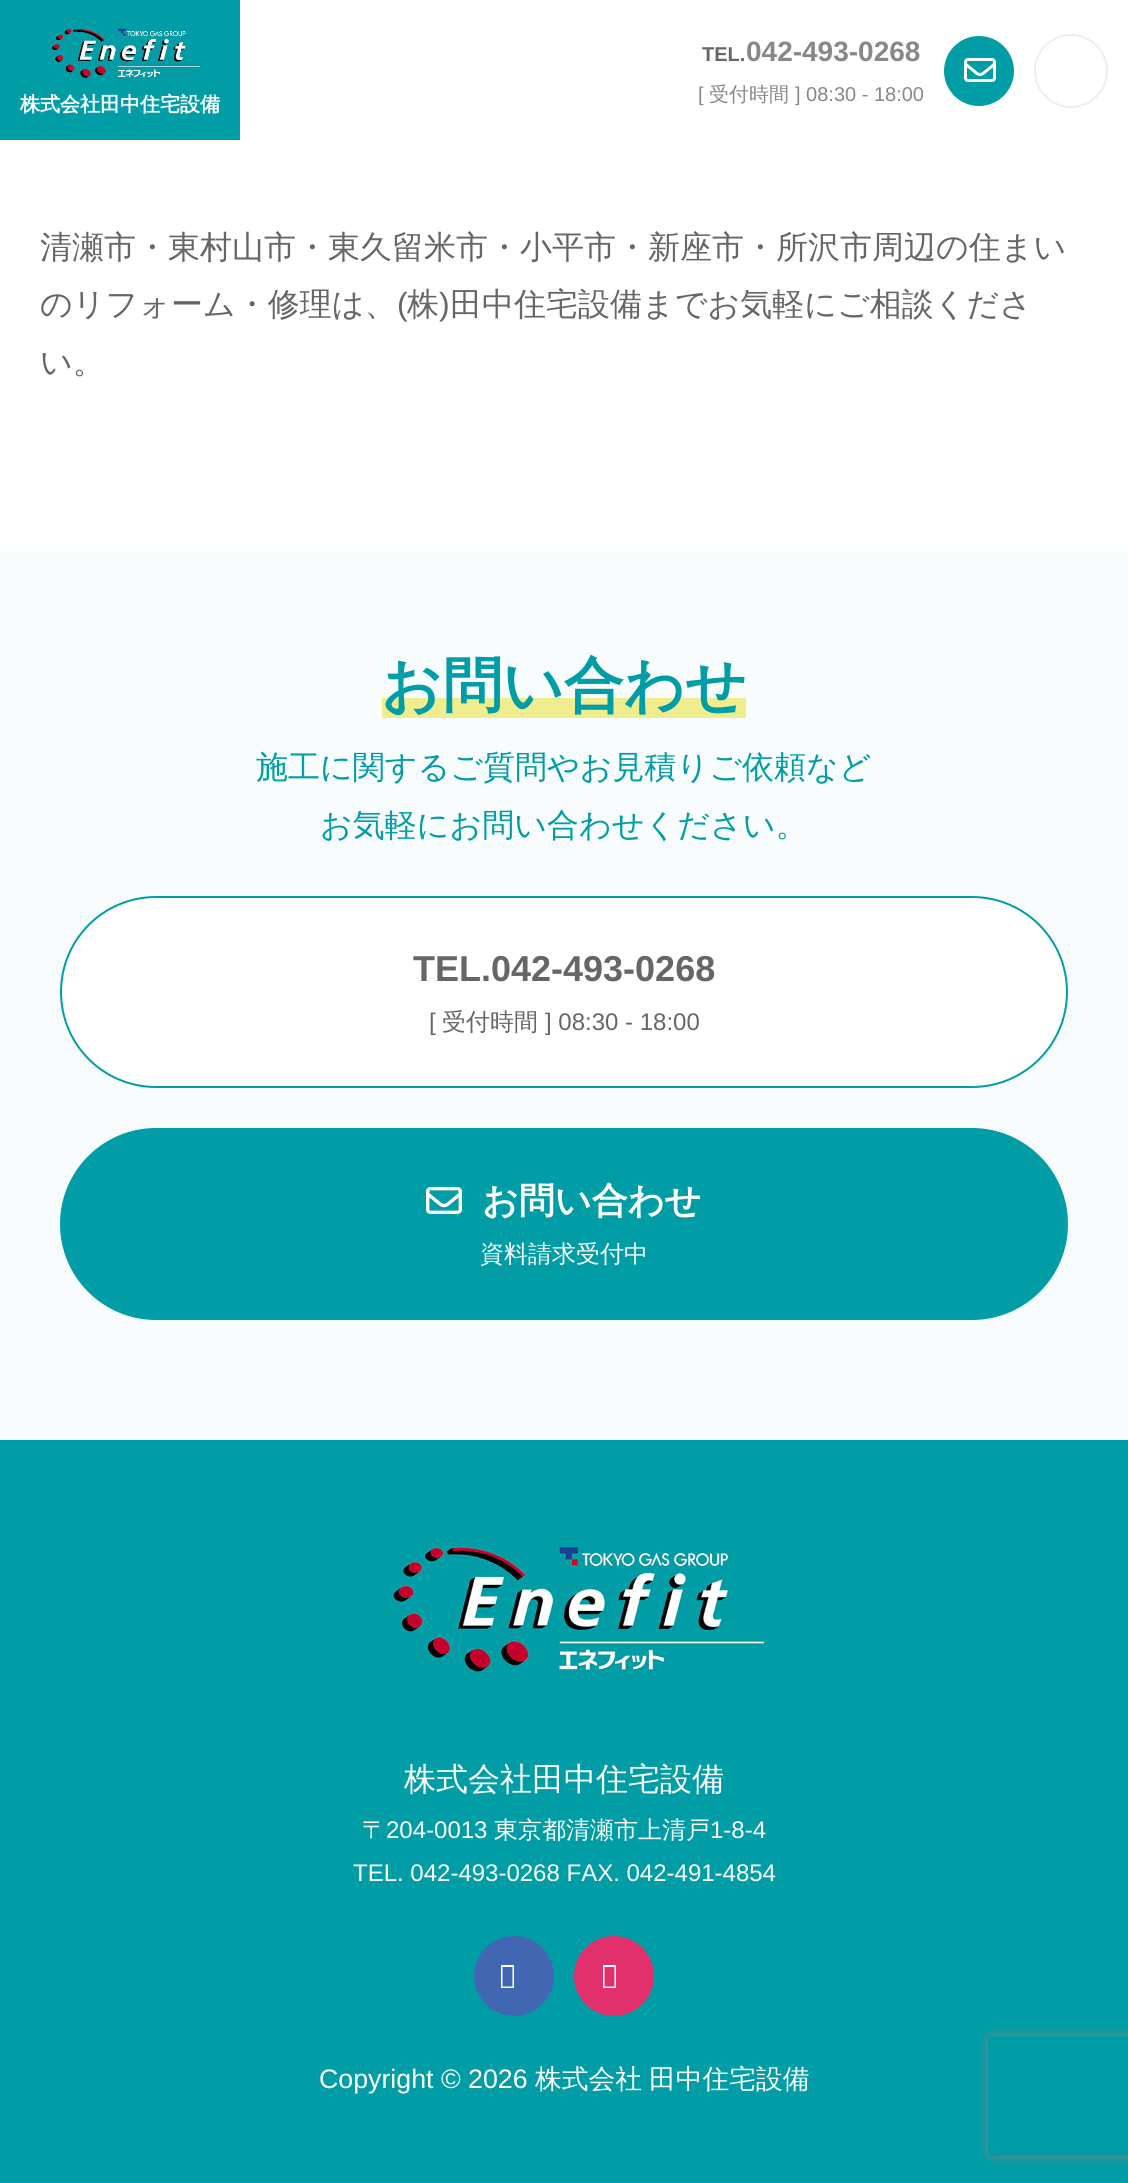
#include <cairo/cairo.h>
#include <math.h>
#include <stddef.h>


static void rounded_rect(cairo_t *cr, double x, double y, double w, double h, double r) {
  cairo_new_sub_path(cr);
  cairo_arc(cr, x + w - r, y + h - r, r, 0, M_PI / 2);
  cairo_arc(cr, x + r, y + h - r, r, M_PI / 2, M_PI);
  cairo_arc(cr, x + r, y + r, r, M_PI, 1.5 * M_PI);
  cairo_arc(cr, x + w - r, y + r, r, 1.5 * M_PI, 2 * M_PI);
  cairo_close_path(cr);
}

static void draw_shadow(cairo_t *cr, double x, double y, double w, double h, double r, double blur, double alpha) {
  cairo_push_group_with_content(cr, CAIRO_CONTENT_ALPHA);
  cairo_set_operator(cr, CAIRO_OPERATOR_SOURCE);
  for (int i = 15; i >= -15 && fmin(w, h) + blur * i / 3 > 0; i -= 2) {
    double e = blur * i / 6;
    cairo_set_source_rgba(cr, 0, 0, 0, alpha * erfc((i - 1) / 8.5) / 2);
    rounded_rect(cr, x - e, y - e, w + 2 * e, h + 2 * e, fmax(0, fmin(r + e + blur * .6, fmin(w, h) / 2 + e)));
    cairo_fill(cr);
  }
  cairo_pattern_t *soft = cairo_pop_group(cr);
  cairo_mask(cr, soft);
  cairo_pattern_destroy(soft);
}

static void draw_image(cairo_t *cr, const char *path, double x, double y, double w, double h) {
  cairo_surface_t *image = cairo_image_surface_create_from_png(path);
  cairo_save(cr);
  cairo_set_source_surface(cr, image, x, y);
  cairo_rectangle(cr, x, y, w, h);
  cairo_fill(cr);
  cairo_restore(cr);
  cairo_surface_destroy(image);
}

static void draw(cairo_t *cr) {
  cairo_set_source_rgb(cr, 1, 1, 1);
  cairo_paint(cr);
  cairo_set_source_rgb(cr, 0, 157 / 255.0, 166 / 255.0);
  cairo_rectangle(cr, 0, 0, 240, 140);
  cairo_fill(cr);
  draw_image(cr, "images/1.png", 51, 28, 149, 51);
  cairo_arc(cr, 979, 71, 34, 0, 2 * M_PI);
  cairo_fill_preserve(cr);
  cairo_stroke(cr);
  draw_image(cr, "images/2.png", 964, 58, 32, 24);
  cairo_arc(cr, 1071, 71, 36, 0, 2 * M_PI);
  cairo_set_source_rgb(cr, 238 / 255.0, 238 / 255.0, 238 / 255.0);
  cairo_stroke(cr);
  cairo_set_source_rgb(cr, 0, 157 / 255.0, 166 / 255.0);
  cairo_rectangle(cr, 0, 1440, 1128, 743);
  cairo_fill(cr);
  cairo_set_source_rgb(cr, 248 / 255.0, 252 / 255.0, 253 / 255.0);
  cairo_rectangle(cr, 0, 552, 1128, 888);
  cairo_fill(cr);
  cairo_set_source_rgb(cr, 240 / 255.0, 237 / 255.0, 143 / 255.0);
  cairo_rectangle(cr, 382, 698, 364, 20);
  cairo_fill(cr);
  cairo_set_source_rgb(cr, 1, 1, 1);
  rounded_rect(cr, 61, 897, 1006, 190, 95);
  cairo_fill_preserve(cr);
  cairo_set_source_rgb(cr, 0, 157 / 255.0, 166 / 255.0);
  cairo_stroke(cr);
  rounded_rect(cr, 61, 1129, 1006, 190, 95);
  cairo_fill_preserve(cr);
  cairo_stroke(cr);
  draw_image(cr, "images/3.png", 426, 1187, 36, 27);
  draw_image(cr, "images/4.png", 391, 1546, 373, 128);
  cairo_set_source_rgb(cr, 66 / 255.0, 103 / 255.0, 178 / 255.0);
  cairo_arc(cr, 514, 1976, 40, 0, 2 * M_PI);
  cairo_fill(cr);
  cairo_set_source_rgb(cr, 1, 1, 1);
  cairo_new_path(cr);
  cairo_move_to(cr, 501, 1988);
  cairo_line_to(cr, 501, 1965);
  cairo_line_to(cr, 514, 1965);
  cairo_line_to(cr, 514, 1988);
  cairo_close_path(cr);
  cairo_move_to(cr, 502.5, 1986.5);
  cairo_line_to(cr, 512.5, 1986.5);
  cairo_line_to(cr, 512.5, 1967);
  cairo_line_to(cr, 502.5, 1967);
  cairo_close_path(cr);
  cairo_fill(cr);
  cairo_set_source_rgb(cr, 225 / 255.0, 48 / 255.0, 108 / 255.0);
  cairo_arc(cr, 614, 1976, 40, 0, 2 * M_PI);
  cairo_fill(cr);
  cairo_set_source_rgb(cr, 1, 1, 1);
  cairo_new_path(cr);
  cairo_move_to(cr, 603, 1988);
  cairo_line_to(cr, 603, 1965);
  cairo_line_to(cr, 616, 1965);
  cairo_line_to(cr, 616, 1988);
  cairo_close_path(cr);
  cairo_move_to(cr, 604.5, 1986.5);
  cairo_line_to(cr, 614.5, 1986.5);
  cairo_line_to(cr, 614.5, 1967);
  cairo_line_to(cr, 604.5, 1967);
  cairo_close_path(cr);
  cairo_fill(cr);
  cairo_save(cr);
  cairo_set_fill_rule(cr, CAIRO_FILL_RULE_EVEN_ODD);
  cairo_new_path(cr);
  cairo_move_to(cr, 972, 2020);
  cairo_line_to(cr, 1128, 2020);
  cairo_line_to(cr, 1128, 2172);
  cairo_line_to(cr, 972, 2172);
  cairo_close_path(cr);
  cairo_move_to(cr, 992, 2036);
  cairo_line_to(cr, 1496, 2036);
  cairo_curve_to(cr, 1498, 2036, 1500, 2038, 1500, 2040);
  cairo_line_to(cr, 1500, 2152);
  cairo_curve_to(cr, 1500, 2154, 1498, 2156, 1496, 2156);
  cairo_line_to(cr, 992, 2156);
  cairo_curve_to(cr, 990, 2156, 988, 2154, 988, 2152);
  cairo_line_to(cr, 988, 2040);
  cairo_curve_to(cr, 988, 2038, 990, 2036, 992, 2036);
  cairo_close_path(cr);
  cairo_clip(cr);
  cairo_set_source_rgb(cr, 128 / 255.0, 128 / 255.0, 128 / 255.0);
  draw_shadow(cr, 988, 2036, 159, 120, 4, 5, 1);
  cairo_restore(cr);
  cairo_select_font_face(cr, "WenQuanYi Zen Hei", CAIRO_FONT_SLANT_NORMAL, CAIRO_FONT_WEIGHT_BOLD);
  cairo_set_font_size(cr, 20);
  cairo_move_to(cr, 20, 111);
  cairo_show_text(cr, "株式会社田中住宅設備");
  cairo_select_font_face(cr, "Liberation Sans", CAIRO_FONT_SLANT_NORMAL, CAIRO_FONT_WEIGHT_BOLD);
  cairo_set_source_rgb(cr, 102 / 255.0, 102 / 255.0, 102 / 255.0);
  cairo_move_to(cr, 702, 61);
  cairo_show_text(cr, "TEL.");
  cairo_set_font_size(cr, 28);
  cairo_set_source_rgb(cr, 136 / 255.0, 136 / 255.0, 136 / 255.0);
  cairo_move_to(cr, 746, 61);
  cairo_show_text(cr, "042-493-0268");
  cairo_select_font_face(cr, "Liberation Sans", CAIRO_FONT_SLANT_NORMAL, CAIRO_FONT_WEIGHT_NORMAL);
  cairo_set_font_size(cr, 20);
  cairo_move_to(cr, 698, 101);
  cairo_show_text(cr, "[");
  cairo_select_font_face(cr, "WenQuanYi Zen Hei Medium", CAIRO_FONT_SLANT_NORMAL, CAIRO_FONT_WEIGHT_NORMAL);
  cairo_move_to(cr, 709, 101);
  cairo_show_text(cr, "受付時間");
  cairo_select_font_face(cr, "Liberation Sans", CAIRO_FONT_SLANT_NORMAL, CAIRO_FONT_WEIGHT_NORMAL);
  cairo_move_to(cr, 795, 101);
  cairo_show_text(cr, "] 08:30 - 18:00");
  cairo_select_font_face(cr, "WenQuanYi Zen Hei Medium", CAIRO_FONT_SLANT_NORMAL, CAIRO_FONT_WEIGHT_NORMAL);
  cairo_set_font_size(cr, 32);
  cairo_set_source_rgb(cr, 102 / 255.0, 102 / 255.0, 102 / 255.0);
  cairo_move_to(cr, 40, 258);
  cairo_show_text(cr, "清瀬市・東村山市・東久留米市・小平市・新座市・所沢市周辺の住まい");
  cairo_move_to(cr, 40, 315);
  cairo_show_text(cr, "のリフォーム・修理は、");
  cairo_select_font_face(cr, "Liberation Sans", CAIRO_FONT_SLANT_NORMAL, CAIRO_FONT_WEIGHT_NORMAL);
  cairo_move_to(cr, 397, 315);
  cairo_show_text(cr, "(");
  cairo_select_font_face(cr, "WenQuanYi Zen Hei Medium", CAIRO_FONT_SLANT_NORMAL, CAIRO_FONT_WEIGHT_NORMAL);
  cairo_move_to(cr, 407, 315);
  cairo_show_text(cr, "株");
  cairo_select_font_face(cr, "Liberation Sans", CAIRO_FONT_SLANT_NORMAL, CAIRO_FONT_WEIGHT_NORMAL);
  cairo_move_to(cr, 439, 315);
  cairo_show_text(cr, ")");
  cairo_select_font_face(cr, "WenQuanYi Zen Hei Medium", CAIRO_FONT_SLANT_NORMAL, CAIRO_FONT_WEIGHT_NORMAL);
  cairo_move_to(cr, 450, 315);
  cairo_show_text(cr, "田中住宅設備までお気軽にご相談くださ");
  cairo_move_to(cr, 40, 373);
  cairo_show_text(cr, "い。");
  cairo_select_font_face(cr, "WenQuanYi Zen Hei", CAIRO_FONT_SLANT_NORMAL, CAIRO_FONT_WEIGHT_BOLD);
  cairo_set_font_size(cr, 60);
  cairo_set_source_rgb(cr, 0, 157 / 255.0, 166 / 255.0);
  cairo_move_to(cr, 381, 706);
  cairo_show_text(cr, "お問い合わせ");
  cairo_select_font_face(cr, "WenQuanYi Zen Hei Medium", CAIRO_FONT_SLANT_NORMAL, CAIRO_FONT_WEIGHT_NORMAL);
  cairo_set_font_size(cr, 32);
  cairo_move_to(cr, 256, 778);
  cairo_show_text(cr, "施工に関するご質問やお見積りご依頼など");
  cairo_move_to(cr, 320, 836);
  cairo_show_text(cr, "お気軽にお問い合わせください。");
  cairo_select_font_face(cr, "Liberation Sans", CAIRO_FONT_SLANT_NORMAL, CAIRO_FONT_WEIGHT_BOLD);
  cairo_set_font_size(cr, 36);
  cairo_set_source_rgb(cr, 102 / 255.0, 102 / 255.0, 102 / 255.0);
  cairo_move_to(cr, 413, 981);
  cairo_show_text(cr, "TEL.042-493-0268");
  cairo_select_font_face(cr, "Liberation Sans", CAIRO_FONT_SLANT_NORMAL, CAIRO_FONT_WEIGHT_NORMAL);
  cairo_set_font_size(cr, 24);
  cairo_move_to(cr, 429, 1030);
  cairo_show_text(cr, "[");
  cairo_select_font_face(cr, "WenQuanYi Zen Hei Medium", CAIRO_FONT_SLANT_NORMAL, CAIRO_FONT_WEIGHT_NORMAL);
  cairo_move_to(cr, 442, 1030);
  cairo_show_text(cr, "受付時間");
  cairo_select_font_face(cr, "Liberation Sans", CAIRO_FONT_SLANT_NORMAL, CAIRO_FONT_WEIGHT_NORMAL);
  cairo_move_to(cr, 545, 1030);
  cairo_show_text(cr, "] 08:30 - 18:00");
  cairo_select_font_face(cr, "WenQuanYi Zen Hei", CAIRO_FONT_SLANT_NORMAL, CAIRO_FONT_WEIGHT_BOLD);
  cairo_set_font_size(cr, 36);
  cairo_set_source_rgb(cr, 1, 1, 1);
  cairo_move_to(cr, 482, 1213);
  cairo_show_text(cr, "お問い合わせ");
  cairo_select_font_face(cr, "WenQuanYi Zen Hei Medium", CAIRO_FONT_SLANT_NORMAL, CAIRO_FONT_WEIGHT_NORMAL);
  cairo_set_font_size(cr, 24);
  cairo_move_to(cr, 480, 1262);
  cairo_show_text(cr, "資料請求受付中");
  cairo_set_font_size(cr, 32);
  cairo_move_to(cr, 404, 1790);
  cairo_show_text(cr, "株式会社田中住宅設備");
  cairo_set_font_size(cr, 24);
  cairo_move_to(cr, 362, 1838);
  cairo_show_text(cr, "〒");
  cairo_select_font_face(cr, "Liberation Sans", CAIRO_FONT_SLANT_NORMAL, CAIRO_FONT_WEIGHT_NORMAL);
  cairo_move_to(cr, 386, 1838);
  cairo_show_text(cr, "204-0013");
  cairo_select_font_face(cr, "WenQuanYi Zen Hei Medium", CAIRO_FONT_SLANT_NORMAL, CAIRO_FONT_WEIGHT_NORMAL);
  cairo_move_to(cr, 494, 1838);
  cairo_show_text(cr, "東京都清瀬市上清戸");
  cairo_select_font_face(cr, "Liberation Sans", CAIRO_FONT_SLANT_NORMAL, CAIRO_FONT_WEIGHT_NORMAL);
  cairo_move_to(cr, 710, 1838);
  cairo_show_text(cr, "1-8-4");
  cairo_move_to(cr, 353, 1881);
  cairo_show_text(cr, "TEL. 042-493-0268 FAX. 042-491-4854");
  cairo_set_font_size(cr, 26.75);
  cairo_move_to(cr, 319, 2088);
  cairo_show_text(cr, "Copyright © 2026");
  cairo_select_font_face(cr, "WenQuanYi Zen Hei Medium", CAIRO_FONT_SLANT_NORMAL, CAIRO_FONT_WEIGHT_NORMAL);
  cairo_move_to(cr, 535, 2088);
  cairo_show_text(cr, "株式会社");
  cairo_move_to(cr, 649, 2088);
  cairo_show_text(cr, "田中住宅設備");
}

int main(void) {
  cairo_surface_t *surface = cairo_image_surface_create(CAIRO_FORMAT_RGB24, 1128, 2183);
  cairo_t *cr = cairo_create(surface);
  cairo_font_options_t *options = cairo_font_options_create();
  cairo_font_options_set_hint_metrics(options, CAIRO_HINT_METRICS_OFF);
  cairo_font_options_set_hint_style(options, CAIRO_HINT_STYLE_NONE);
  cairo_set_font_options(cr, options);
  cairo_set_miter_limit(cr, 4);
  draw(cr);
  cairo_surface_write_to_png(surface, "out.png");
  cairo_font_options_destroy(options);
  cairo_destroy(cr);
  cairo_surface_destroy(surface);
  return 0;
}
